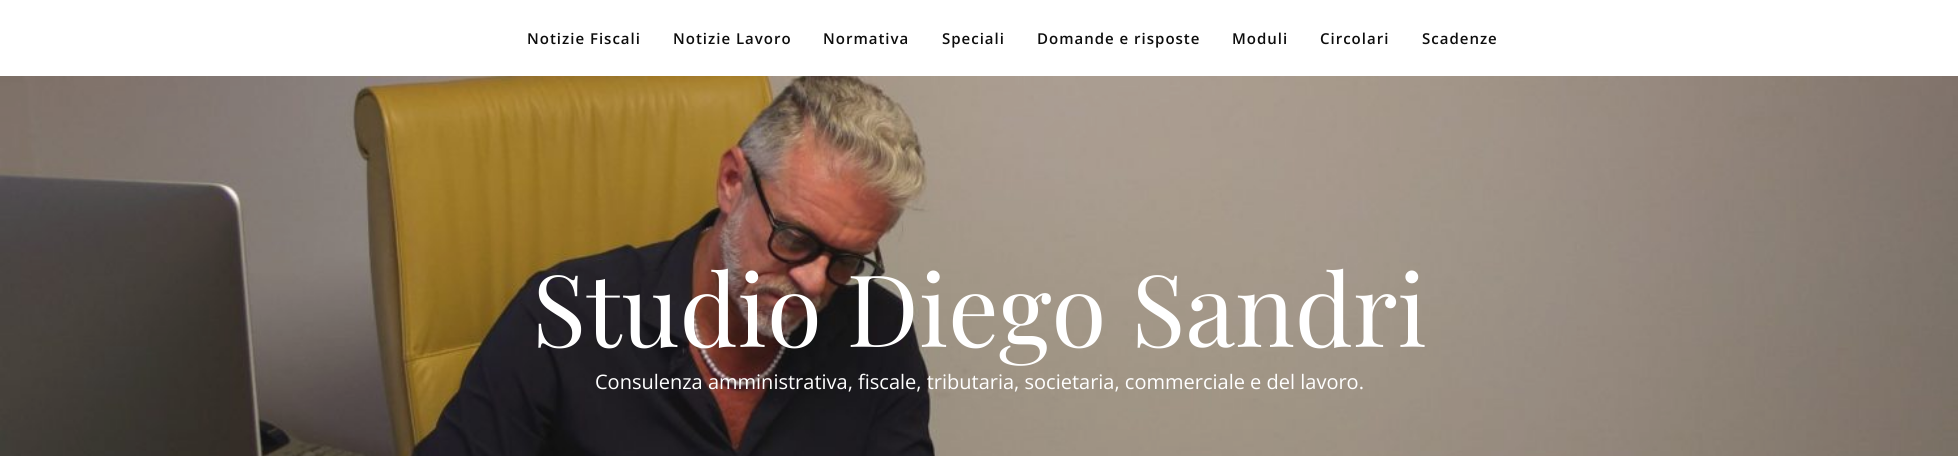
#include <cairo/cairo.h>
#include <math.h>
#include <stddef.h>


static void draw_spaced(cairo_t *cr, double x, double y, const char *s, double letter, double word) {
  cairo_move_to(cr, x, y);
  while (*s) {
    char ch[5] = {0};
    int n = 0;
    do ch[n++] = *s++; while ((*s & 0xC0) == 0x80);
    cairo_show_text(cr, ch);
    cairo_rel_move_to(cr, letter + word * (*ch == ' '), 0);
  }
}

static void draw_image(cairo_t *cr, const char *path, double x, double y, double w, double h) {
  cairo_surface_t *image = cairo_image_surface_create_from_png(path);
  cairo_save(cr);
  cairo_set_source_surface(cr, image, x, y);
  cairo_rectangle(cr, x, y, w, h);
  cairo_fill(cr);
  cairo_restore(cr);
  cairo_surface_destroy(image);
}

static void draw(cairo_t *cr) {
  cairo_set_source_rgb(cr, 1, 1, 1);
  cairo_paint(cr);
  draw_image(cr, "images/1.png", 0, 76, 1958, 380);
  cairo_select_font_face(cr, "Open Sans SemiBold", CAIRO_FONT_SLANT_NORMAL, CAIRO_FONT_WEIGHT_NORMAL);
  cairo_set_font_size(cr, 15);
  cairo_set_source_rgb(cr, 13 / 255.0, 13 / 255.0, 13 / 255.0);
  draw_spaced(cr, 527, 44, "Notizie Fiscali", 1, 0);
  draw_spaced(cr, 673, 44, "Notizie Lavoro", 1, 0);
  draw_spaced(cr, 823, 44, "Normativa", 1, 0);
  draw_spaced(cr, 942, 44, "Speciali", 1, 0);
  draw_spaced(cr, 1037, 44, "Domande e risposte", 1, 0);
  draw_spaced(cr, 1232, 44, "Moduli", 1, 0);
  draw_spaced(cr, 1320, 44, "Circolari", 1, 0);
  draw_spaced(cr, 1422, 44, "Scadenze", 1, 0);
  cairo_select_font_face(cr, "Playfair Display", CAIRO_FONT_SLANT_NORMAL, CAIRO_FONT_WEIGHT_NORMAL);
  cairo_set_font_size(cr, 100);
  cairo_set_source_rgb(cr, 1, 1, 1);
  cairo_move_to(cr, 532, 347);
  cairo_show_text(cr, "Studio Diego Sandri");
  cairo_select_font_face(cr, "Open Sans", CAIRO_FONT_SLANT_NORMAL, CAIRO_FONT_WEIGHT_NORMAL);
  cairo_set_font_size(cr, 20);
  cairo_move_to(cr, 595, 389);
  cairo_show_text(cr, "Consulenza amministrativa, fiscale, tributaria, societaria, commerciale e del lavoro.");
}

int main(void) {
  cairo_surface_t *surface = cairo_image_surface_create(CAIRO_FORMAT_RGB24, 1958, 456);
  cairo_t *cr = cairo_create(surface);
  cairo_font_options_t *options = cairo_font_options_create();
  cairo_font_options_set_hint_metrics(options, CAIRO_HINT_METRICS_OFF);
  cairo_font_options_set_hint_style(options, CAIRO_HINT_STYLE_NONE);
  cairo_set_font_options(cr, options);
  cairo_set_miter_limit(cr, 4);
  draw(cr);
  cairo_surface_write_to_png(surface, "out.png");
  cairo_font_options_destroy(options);
  cairo_destroy(cr);
  cairo_surface_destroy(surface);
  return 0;
}
